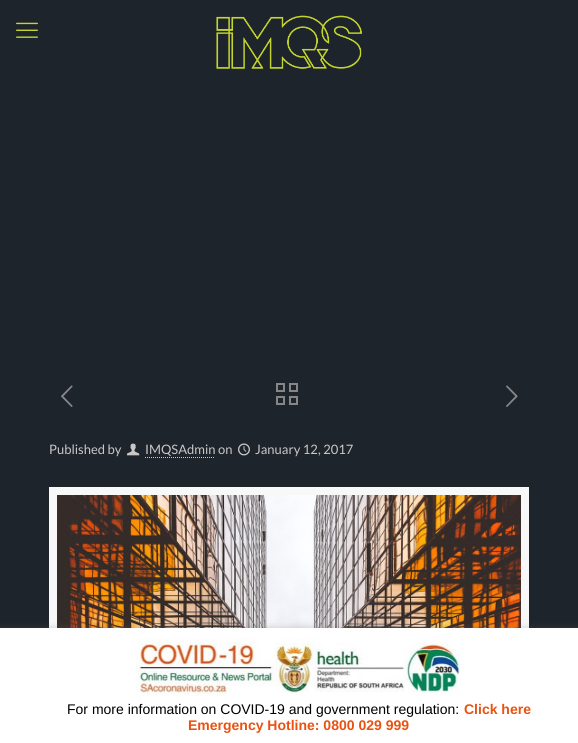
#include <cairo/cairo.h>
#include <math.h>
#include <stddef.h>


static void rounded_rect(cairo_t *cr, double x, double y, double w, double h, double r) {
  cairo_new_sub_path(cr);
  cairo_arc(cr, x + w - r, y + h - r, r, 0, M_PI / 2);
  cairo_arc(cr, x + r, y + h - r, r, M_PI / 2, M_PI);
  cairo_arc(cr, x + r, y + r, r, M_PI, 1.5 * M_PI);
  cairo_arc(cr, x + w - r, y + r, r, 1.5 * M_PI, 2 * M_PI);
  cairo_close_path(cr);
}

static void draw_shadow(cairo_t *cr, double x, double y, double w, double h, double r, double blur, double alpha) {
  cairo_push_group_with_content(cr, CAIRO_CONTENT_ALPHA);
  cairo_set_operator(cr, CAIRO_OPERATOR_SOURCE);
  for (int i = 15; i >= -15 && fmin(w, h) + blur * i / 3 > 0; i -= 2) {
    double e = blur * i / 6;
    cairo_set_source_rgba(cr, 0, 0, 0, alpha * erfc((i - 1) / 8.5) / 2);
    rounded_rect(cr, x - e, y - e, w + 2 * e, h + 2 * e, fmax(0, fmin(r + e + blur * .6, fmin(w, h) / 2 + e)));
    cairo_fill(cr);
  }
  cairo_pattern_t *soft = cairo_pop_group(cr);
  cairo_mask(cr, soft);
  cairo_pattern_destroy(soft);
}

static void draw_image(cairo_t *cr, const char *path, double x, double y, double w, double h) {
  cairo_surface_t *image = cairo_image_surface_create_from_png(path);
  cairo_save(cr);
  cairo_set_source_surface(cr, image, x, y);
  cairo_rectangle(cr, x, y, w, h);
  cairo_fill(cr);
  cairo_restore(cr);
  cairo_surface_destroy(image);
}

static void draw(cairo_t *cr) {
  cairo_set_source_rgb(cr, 30 / 255.0, 36 / 255.0, 43 / 255.0);
  cairo_paint(cr);
  draw_image(cr, "images/1.png", 16, 22, 22, 16);
  draw_image(cr, "images/2.png", 216, 15, 146, 54);
  draw_image(cr, "images/3.png", 61, 385, 12, 22);
  draw_image(cr, "images/4.png", 276, 383, 22, 22);
  draw_image(cr, "images/5.png", 506, 385, 12, 22);
  draw_image(cr, "images/6.png", 127, 443, 13, 13);
  cairo_new_path(cr);
  cairo_move_to(cr, 145, 457.5);
  cairo_line_to(cr, 215, 457.5);
  cairo_set_source_rgb(cr, 203 / 255.0, 199 / 255.0, 199 / 255.0);
  cairo_set_line_width(cr, 1);
  cairo_set_dash(cr, (double[]){1, 1}, 2, 0);
  cairo_stroke(cr);
  draw_image(cr, "images/7.png", 238, 443, 12, 13);
  cairo_rectangle(cr, 53, 491, 472, 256);
  cairo_set_source_rgb(cr, 248 / 255.0, 248 / 255.0, 248 / 255.0);
  cairo_set_line_width(cr, 8);
  cairo_set_dash(cr, NULL, 0, 0);
  cairo_stroke(cr);
  draw_image(cr, "images/8.png", 57, 495, 464, 133);
  cairo_set_source_rgb(cr, 102 / 255.0, 102 / 255.0, 102 / 255.0);
  draw_shadow(cr, -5, 628, 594, 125, 0, 3.5, 0.3);
  cairo_set_source_rgb(cr, 1, 1, 1);
  cairo_rectangle(cr, 0, 628, 578, 115);
  cairo_fill(cr);
  draw_image(cr, "images/9.png", 136, 638, 326, 58);
  cairo_select_font_face(cr, "Lato", CAIRO_FONT_SLANT_NORMAL, CAIRO_FONT_WEIGHT_NORMAL);
  cairo_set_font_size(cr, 13);
  cairo_set_source_rgb(cr, 203 / 255.0, 199 / 255.0, 199 / 255.0);
  cairo_move_to(cr, 49, 454);
  cairo_show_text(cr, "Published by");
  cairo_move_to(cr, 145, 454);
  cairo_show_text(cr, "IMQSAdmin on");
  cairo_move_to(cr, 255, 454);
  cairo_show_text(cr, "January 12, 2017");
  cairo_select_font_face(cr, "Liberation Sans", CAIRO_FONT_SLANT_NORMAL, CAIRO_FONT_WEIGHT_NORMAL);
  cairo_set_font_size(cr, 14);
  cairo_set_source_rgb(cr, 0, 0, 0);
  cairo_move_to(cr, 67, 714);
  cairo_show_text(cr, "For more information on COVID-19 and government regulation:");
  cairo_select_font_face(cr, "Liberation Sans", CAIRO_FONT_SLANT_NORMAL, CAIRO_FONT_WEIGHT_BOLD);
  cairo_set_source_rgb(cr, 233 / 255.0, 82 / 255.0, 17 / 255.0);
  cairo_move_to(cr, 464, 714);
  cairo_show_text(cr, "Click here");
  cairo_move_to(cr, 188, 730);
  cairo_show_text(cr, "Emergency Hotline: 0800 029 999");
}

int main(void) {
  cairo_surface_t *surface = cairo_image_surface_create(CAIRO_FORMAT_RGB24, 578, 743);
  cairo_t *cr = cairo_create(surface);
  cairo_font_options_t *options = cairo_font_options_create();
  cairo_font_options_set_hint_metrics(options, CAIRO_HINT_METRICS_OFF);
  cairo_font_options_set_hint_style(options, CAIRO_HINT_STYLE_NONE);
  cairo_set_font_options(cr, options);
  cairo_set_miter_limit(cr, 4);
  draw(cr);
  cairo_surface_write_to_png(surface, "out.png");
  cairo_font_options_destroy(options);
  cairo_destroy(cr);
  cairo_surface_destroy(surface);
  return 0;
}
